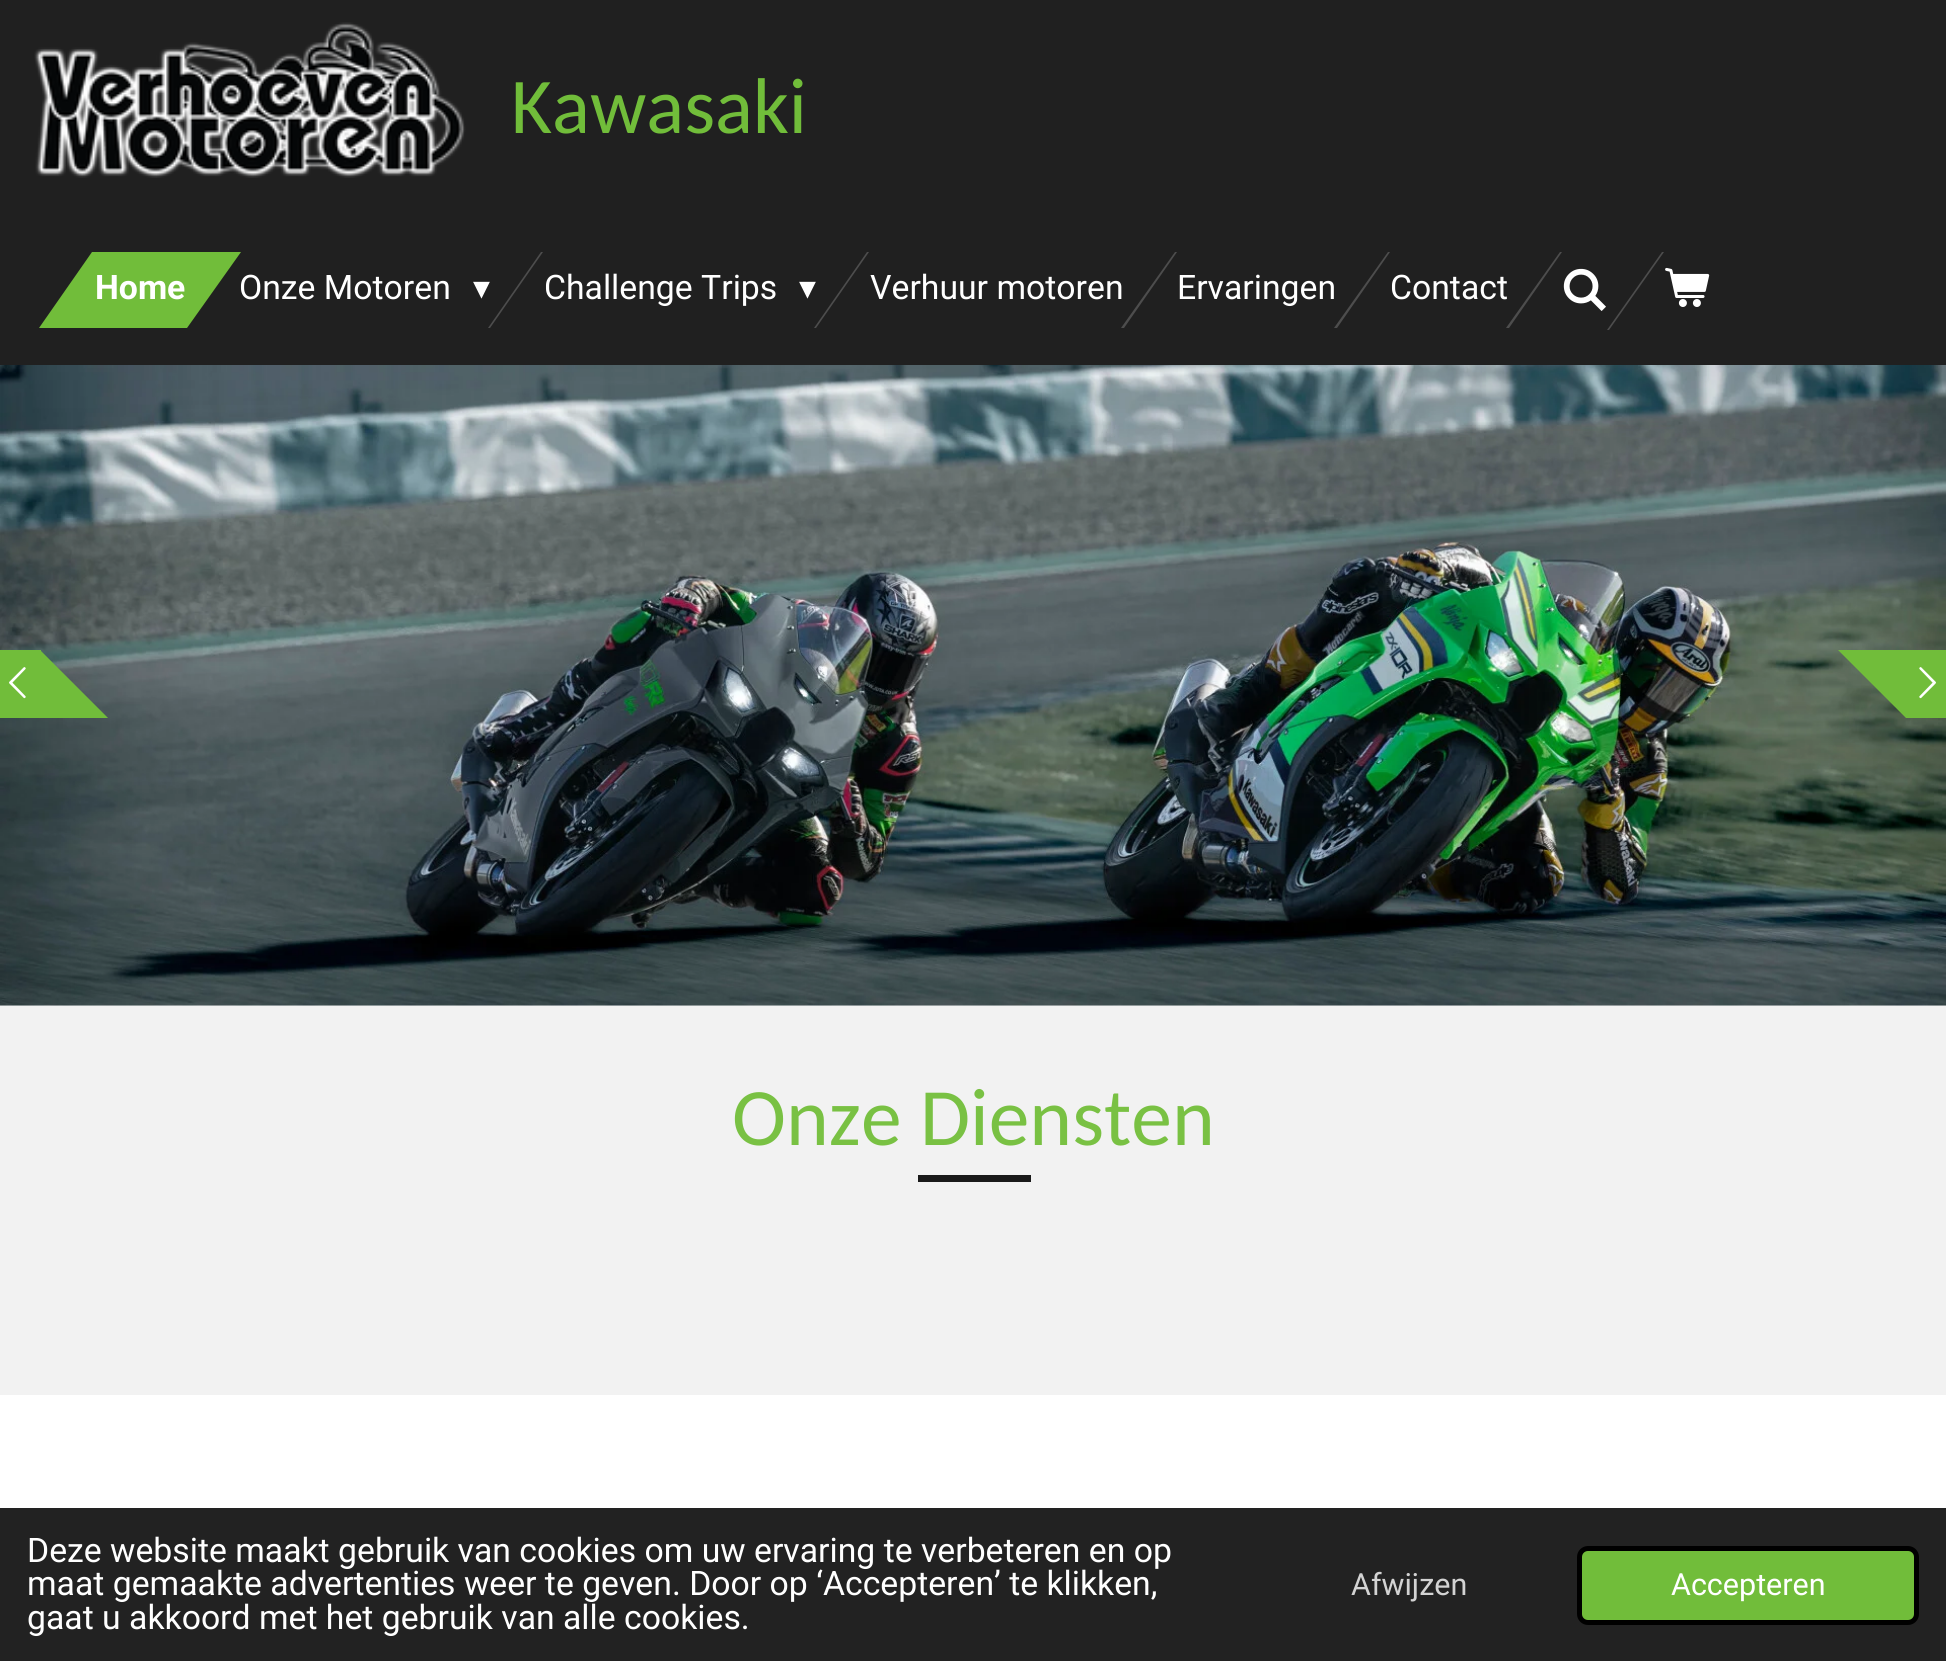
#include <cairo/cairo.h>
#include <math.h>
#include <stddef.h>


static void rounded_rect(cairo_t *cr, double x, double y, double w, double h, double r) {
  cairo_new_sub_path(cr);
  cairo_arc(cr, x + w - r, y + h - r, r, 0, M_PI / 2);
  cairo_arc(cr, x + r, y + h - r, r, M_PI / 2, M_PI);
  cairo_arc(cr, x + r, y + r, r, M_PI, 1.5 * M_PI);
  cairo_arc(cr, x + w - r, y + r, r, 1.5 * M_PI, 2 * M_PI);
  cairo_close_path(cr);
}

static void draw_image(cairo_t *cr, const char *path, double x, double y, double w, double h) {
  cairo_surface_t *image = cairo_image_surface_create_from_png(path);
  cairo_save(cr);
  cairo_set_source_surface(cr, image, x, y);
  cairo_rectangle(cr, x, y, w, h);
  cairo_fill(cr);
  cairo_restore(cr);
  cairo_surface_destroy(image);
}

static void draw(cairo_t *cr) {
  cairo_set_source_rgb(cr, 1, 1, 1);
  cairo_paint(cr);
  cairo_set_source_rgb(cr, 32 / 255.0, 32 / 255.0, 32 / 255.0);
  cairo_rectangle(cr, 0, 0, 1946, 365);
  cairo_fill(cr);
  draw_image(cr, "images/1.png", 34, 22, 432, 156);
  cairo_set_source_rgb(cr, 77 / 255.0, 77 / 255.0, 77 / 255.0);
  cairo_new_path(cr);
  cairo_move_to(cr, 541, 252);
  cairo_line_to(cr, 543, 252);
  cairo_line_to(cr, 490, 328);
  cairo_line_to(cr, 488, 328);
  cairo_close_path(cr);
  cairo_fill(cr);
  cairo_new_path(cr);
  cairo_move_to(cr, 867, 252);
  cairo_line_to(cr, 869, 252);
  cairo_line_to(cr, 816, 328);
  cairo_line_to(cr, 814, 328);
  cairo_close_path(cr);
  cairo_fill(cr);
  cairo_new_path(cr);
  cairo_move_to(cr, 1175, 252);
  cairo_line_to(cr, 1177, 252);
  cairo_line_to(cr, 1124, 328);
  cairo_line_to(cr, 1121, 328);
  cairo_close_path(cr);
  cairo_fill(cr);
  cairo_new_path(cr);
  cairo_move_to(cr, 1388, 252);
  cairo_line_to(cr, 1390, 252);
  cairo_line_to(cr, 1337, 328);
  cairo_line_to(cr, 1334, 328);
  cairo_close_path(cr);
  cairo_fill(cr);
  cairo_new_path(cr);
  cairo_move_to(cr, 1560, 252);
  cairo_line_to(cr, 1562, 252);
  cairo_line_to(cr, 1509, 328);
  cairo_line_to(cr, 1506, 328);
  cairo_close_path(cr);
  cairo_fill(cr);
  draw_image(cr, "images/2.png", 1563, 268, 43, 43);
  cairo_new_path(cr);
  cairo_move_to(cr, 1662, 252);
  cairo_line_to(cr, 1664, 252);
  cairo_line_to(cr, 1609, 330);
  cairo_line_to(cr, 1607, 330);
  cairo_close_path(cr);
  cairo_fill(cr);
  draw_image(cr, "images/3.png", 1665, 267, 45, 40);
  draw_image(cr, "images/4.png", 0, 365, 1946, 641);
  cairo_set_source_rgb(cr, 113 / 255.0, 189 / 255.0, 58 / 255.0);
  cairo_rectangle(cr, 0, 650, 41, 68);
  cairo_fill(cr);
  draw_image(cr, "images/5.png", 9, 667, 17, 32);
  cairo_new_path(cr);
  cairo_move_to(cr, 40, 718);
  cairo_line_to(cr, 40, 650);
  cairo_line_to(cr, 108, 718);
  cairo_close_path(cr);
  cairo_fill(cr);
  cairo_rectangle(cr, 1906, 650, 40, 68);
  cairo_fill(cr);
  cairo_new_path(cr);
  cairo_move_to(cr, 1906, 650);
  cairo_line_to(cr, 1906, 718);
  cairo_line_to(cr, 1838, 650);
  cairo_close_path(cr);
  cairo_fill(cr);
  draw_image(cr, "images/6.png", 1919, 667, 17, 32);
  cairo_set_source_rgb(cr, 242 / 255.0, 242 / 255.0, 242 / 255.0);
  cairo_rectangle(cr, 0, 1006, 1946, 389);
  cairo_fill(cr);
  cairo_set_source_rgb(cr, 26 / 255.0, 26 / 255.0, 26 / 255.0);
  cairo_rectangle(cr, 918, 1175, 113, 7);
  cairo_fill(cr);
  cairo_set_source_rgb(cr, 34 / 255.0, 34 / 255.0, 34 / 255.0);
  cairo_rectangle(cr, 0, 1508, 1946, 153);
  cairo_fill(cr);
  cairo_set_source_rgb(cr, 113 / 255.0, 189 / 255.0, 58 / 255.0);
  rounded_rect(cr, 1579.5, 1548.5, 337, 74, 8.5);
  cairo_fill_preserve(cr);
  cairo_set_source_rgb(cr, 0, 0, 0);
  cairo_set_line_width(cr, 5);
  cairo_stroke(cr);
  cairo_select_font_face(cr, "Carlito", CAIRO_FONT_SLANT_NORMAL, CAIRO_FONT_WEIGHT_NORMAL);
  cairo_set_font_size(cr, 79);
  cairo_set_source_rgb(cr, 113 / 255.0, 189 / 255.0, 58 / 255.0);
  cairo_move_to(cr, 511, 133);
  cairo_show_text(cr, "Kawasaki");
  cairo_select_font_face(cr, "Roboto", CAIRO_FONT_SLANT_NORMAL, CAIRO_FONT_WEIGHT_NORMAL);
  cairo_set_font_size(cr, 33.75);
  cairo_set_source_rgb(cr, 1, 1, 1);
  cairo_move_to(cr, 239, 299);
  cairo_show_text(cr, "Onze Motoren");
  cairo_set_source_rgb(cr, 113 / 255.0, 189 / 255.0, 58 / 255.0);
  cairo_new_path(cr);
  cairo_move_to(cr, 92, 252);
  cairo_line_to(cr, 241, 252);
  cairo_line_to(cr, 187, 328);
  cairo_line_to(cr, 39, 328);
  cairo_close_path(cr);
  cairo_fill(cr);
  cairo_select_font_face(cr, "Roboto", CAIRO_FONT_SLANT_NORMAL, CAIRO_FONT_WEIGHT_BOLD);
  cairo_set_source_rgb(cr, 1, 1, 1);
  cairo_move_to(cr, 95, 299);
  cairo_show_text(cr, "Home");
  cairo_select_font_face(cr, "DejaVu Sans", CAIRO_FONT_SLANT_NORMAL, CAIRO_FONT_WEIGHT_NORMAL);
  cairo_move_to(cr, 473, 299);
  cairo_show_text(cr, "▾");
  cairo_select_font_face(cr, "Roboto", CAIRO_FONT_SLANT_NORMAL, CAIRO_FONT_WEIGHT_NORMAL);
  cairo_move_to(cr, 544, 299);
  cairo_show_text(cr, "Challenge Trips");
  cairo_select_font_face(cr, "DejaVu Sans", CAIRO_FONT_SLANT_NORMAL, CAIRO_FONT_WEIGHT_NORMAL);
  cairo_move_to(cr, 799, 299);
  cairo_show_text(cr, "▾");
  cairo_select_font_face(cr, "Roboto", CAIRO_FONT_SLANT_NORMAL, CAIRO_FONT_WEIGHT_NORMAL);
  cairo_move_to(cr, 870, 299);
  cairo_show_text(cr, "Verhuur motoren");
  cairo_move_to(cr, 1177, 299);
  cairo_show_text(cr, "Ervaringen");
  cairo_move_to(cr, 1390, 299);
  cairo_show_text(cr, "Contact");
  cairo_select_font_face(cr, "Carlito", CAIRO_FONT_SLANT_NORMAL, CAIRO_FONT_WEIGHT_NORMAL);
  cairo_set_font_size(cr, 81.5);
  cairo_set_source_rgb(cr, 121 / 255.0, 193 / 255.0, 67 / 255.0);
  cairo_move_to(cr, 732, 1145);
  cairo_show_text(cr, "Onze Diensten");
  cairo_select_font_face(cr, "Roboto", CAIRO_FONT_SLANT_NORMAL, CAIRO_FONT_WEIGHT_NORMAL);
  cairo_set_font_size(cr, 33.75);
  cairo_set_source_rgb(cr, 1, 1, 1);
  cairo_move_to(cr, 27, 1562);
  cairo_show_text(cr, "Deze website maakt gebruik van cookies om uw ervaring te verbeteren en op");
  cairo_move_to(cr, 27, 1595);
  cairo_show_text(cr, "maat gemaakte advertenties weer te geven. Door op ‘Accepteren’ te klikken,");
  cairo_move_to(cr, 27, 1629);
  cairo_show_text(cr, "gaat u akkoord met het gebruik van alle cookies.");
  cairo_set_font_size(cr, 30.5);
  cairo_set_source_rgb(cr, 211 / 255.0, 211 / 255.0, 211 / 255.0);
  cairo_move_to(cr, 1351, 1595);
  cairo_show_text(cr, "Afwijzen");
  cairo_set_source_rgb(cr, 1, 1, 1);
  cairo_move_to(cr, 1671, 1595);
  cairo_show_text(cr, "Accepteren");
}

int main(void) {
  cairo_surface_t *surface = cairo_image_surface_create(CAIRO_FORMAT_RGB24, 1946, 1661);
  cairo_t *cr = cairo_create(surface);
  cairo_font_options_t *options = cairo_font_options_create();
  cairo_font_options_set_hint_metrics(options, CAIRO_HINT_METRICS_OFF);
  cairo_font_options_set_hint_style(options, CAIRO_HINT_STYLE_NONE);
  cairo_set_font_options(cr, options);
  cairo_set_miter_limit(cr, 4);
  draw(cr);
  cairo_surface_write_to_png(surface, "out.png");
  cairo_font_options_destroy(options);
  cairo_destroy(cr);
  cairo_surface_destroy(surface);
  return 0;
}
